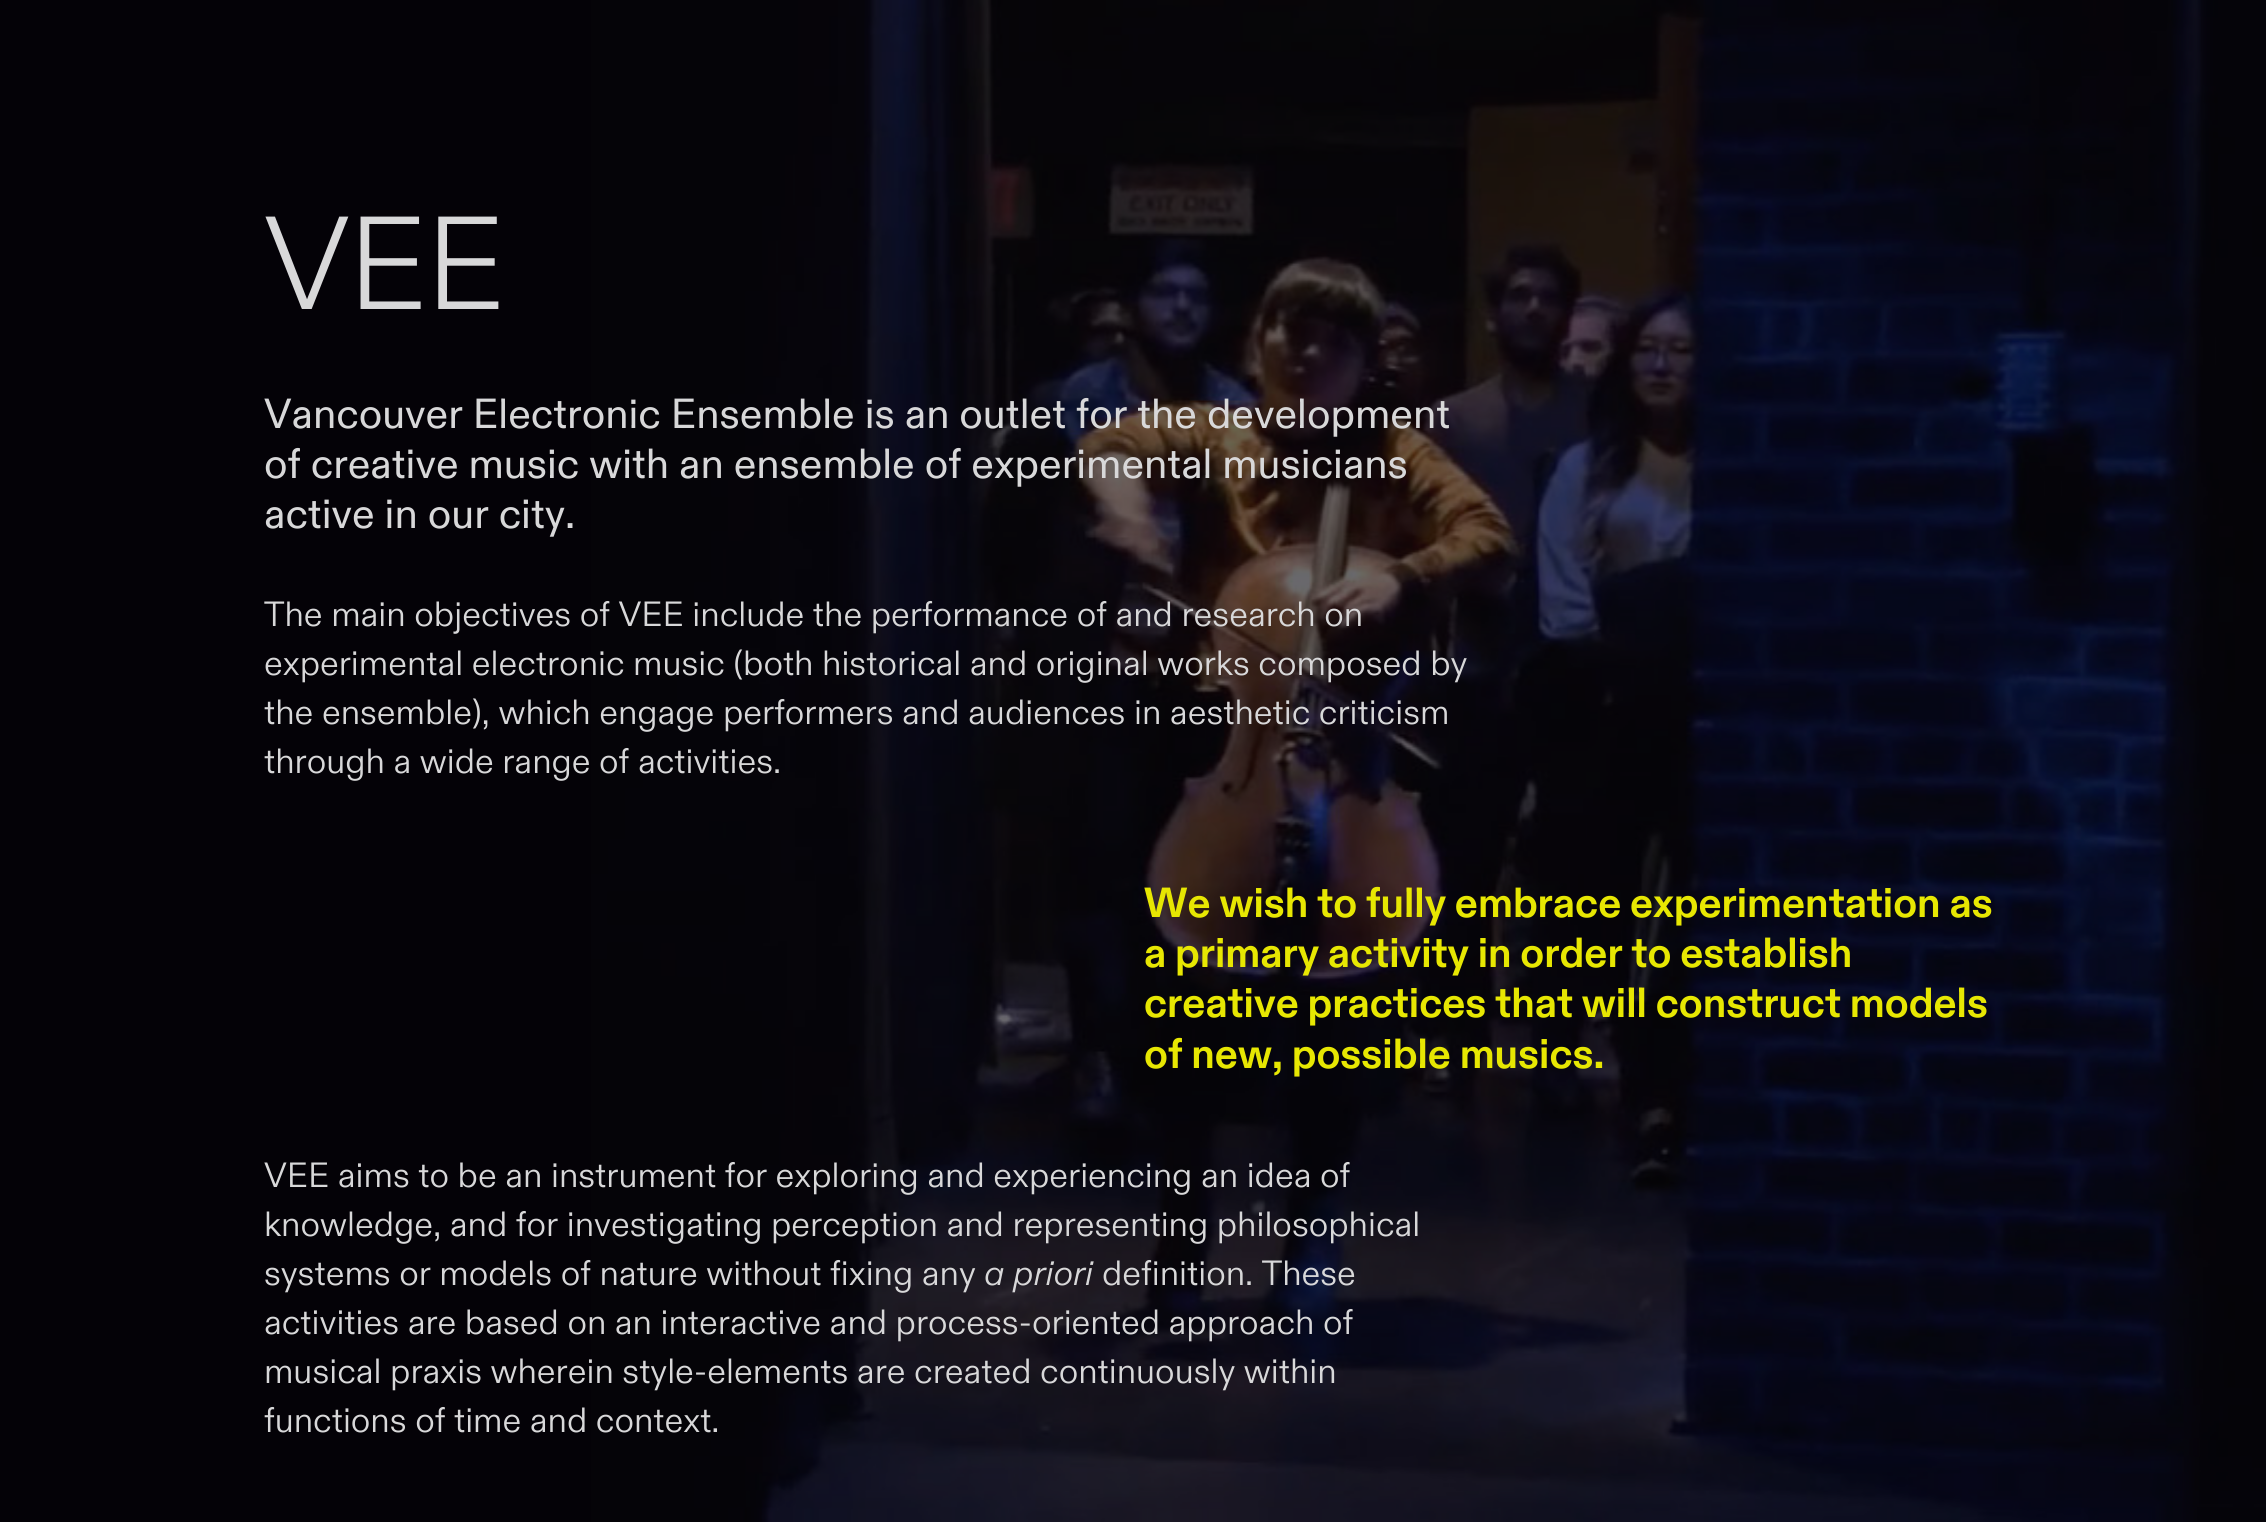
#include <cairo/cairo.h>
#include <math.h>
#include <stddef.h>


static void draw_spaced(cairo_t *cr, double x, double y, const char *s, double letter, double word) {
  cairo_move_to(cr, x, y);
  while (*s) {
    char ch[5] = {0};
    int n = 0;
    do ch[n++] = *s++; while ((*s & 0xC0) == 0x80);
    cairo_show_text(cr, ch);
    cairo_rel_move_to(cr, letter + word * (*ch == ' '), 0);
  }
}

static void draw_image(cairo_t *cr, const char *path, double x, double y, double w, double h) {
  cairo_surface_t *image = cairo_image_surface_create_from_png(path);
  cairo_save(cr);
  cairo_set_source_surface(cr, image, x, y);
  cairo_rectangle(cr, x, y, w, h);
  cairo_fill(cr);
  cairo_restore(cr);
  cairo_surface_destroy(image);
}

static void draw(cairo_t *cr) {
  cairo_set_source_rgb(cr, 4 / 255.0, 2 / 255.0, 7 / 255.0);
  cairo_paint(cr);
  draw_image(cr, "images/1.png", 591, 0, 1675, 1522);
  cairo_select_font_face(cr, "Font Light", CAIRO_FONT_SLANT_NORMAL, CAIRO_FONT_WEIGHT_NORMAL);
  cairo_set_font_size(cr, 132);
  cairo_set_source_rgb(cr, 216 / 255.0, 216 / 255.0, 217 / 255.0);
  draw_spaced(cr, 264, 309, "VEE", -2, 0);
  cairo_select_font_face(cr, "Font", CAIRO_FONT_SLANT_NORMAL, CAIRO_FONT_WEIGHT_NORMAL);
  cairo_set_font_size(cr, 42);
  cairo_move_to(cr, 264, 428);
  cairo_show_text(cr, "Vancouver Electronic Ensemble is an outlet for the development");
  cairo_move_to(cr, 264, 478);
  cairo_show_text(cr, "of creative music with an ensemble of experimental musicians");
  cairo_move_to(cr, 264, 528);
  cairo_show_text(cr, "active in our city.");
  cairo_select_font_face(cr, "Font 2 Light", CAIRO_FONT_SLANT_NORMAL, CAIRO_FONT_WEIGHT_NORMAL);
  cairo_set_font_size(cr, 35);
  cairo_move_to(cr, 264, 626);
  cairo_show_text(cr, "The main objectives of VEE include the performance of and research on");
  cairo_move_to(cr, 264, 675);
  cairo_show_text(cr, "experimental electronic music (both historical and original works composed by");
  cairo_move_to(cr, 264, 724);
  cairo_show_text(cr, "the ensemble), which engage performers and audiences in aesthetic criticism");
  cairo_move_to(cr, 264, 773);
  cairo_show_text(cr, "through a wide range of activities.");
  cairo_select_font_face(cr, "Font", CAIRO_FONT_SLANT_NORMAL, CAIRO_FONT_WEIGHT_BOLD);
  cairo_set_font_size(cr, 42);
  cairo_set_source_rgb(cr, 231 / 255.0, 231 / 255.0, 2 / 255.0);
  cairo_move_to(cr, 1144, 917);
  cairo_show_text(cr, "We wish to fully embrace experimentation as");
  cairo_move_to(cr, 1144, 967);
  cairo_show_text(cr, "a primary activity in order to establish");
  cairo_move_to(cr, 1144, 1017);
  cairo_show_text(cr, "creative practices that will construct models");
  cairo_move_to(cr, 1144, 1068);
  cairo_show_text(cr, "of new, possible musics.");
  cairo_select_font_face(cr, "Font 2 Light", CAIRO_FONT_SLANT_NORMAL, CAIRO_FONT_WEIGHT_NORMAL);
  cairo_set_font_size(cr, 35);
  cairo_set_source_rgb(cr, 216 / 255.0, 216 / 255.0, 217 / 255.0);
  cairo_move_to(cr, 264, 1187);
  cairo_show_text(cr, "VEE aims to be an instrument for exploring and experiencing an idea of");
  cairo_move_to(cr, 264, 1236);
  cairo_show_text(cr, "knowledge, and for investigating perception and representing philosophical");
  cairo_move_to(cr, 264, 1285);
  cairo_show_text(cr, "systems or models of nature without fixing any");
  cairo_select_font_face(cr, "Font Light", CAIRO_FONT_SLANT_ITALIC, CAIRO_FONT_WEIGHT_NORMAL);
  cairo_move_to(cr, 984, 1285);
  cairo_show_text(cr, "a priori");
  cairo_select_font_face(cr, "Font 2 Light", CAIRO_FONT_SLANT_NORMAL, CAIRO_FONT_WEIGHT_NORMAL);
  cairo_move_to(cr, 1102, 1285);
  cairo_show_text(cr, "definition. These");
  cairo_move_to(cr, 264, 1334);
  cairo_show_text(cr, "activities are based on an interactive and process-oriented approach of");
  cairo_move_to(cr, 264, 1383);
  cairo_show_text(cr, "musical praxis wherein style-elements are created continuously within");
  cairo_move_to(cr, 264, 1432);
  cairo_show_text(cr, "functions of time and context.");
}

int main(void) {
  cairo_surface_t *surface = cairo_image_surface_create(CAIRO_FORMAT_RGB24, 2266, 1522);
  cairo_t *cr = cairo_create(surface);
  cairo_font_options_t *options = cairo_font_options_create();
  cairo_font_options_set_hint_metrics(options, CAIRO_HINT_METRICS_OFF);
  cairo_font_options_set_hint_style(options, CAIRO_HINT_STYLE_NONE);
  cairo_set_font_options(cr, options);
  cairo_set_miter_limit(cr, 4);
  draw(cr);
  cairo_surface_write_to_png(surface, "out.png");
  cairo_font_options_destroy(options);
  cairo_destroy(cr);
  cairo_surface_destroy(surface);
  return 0;
}
